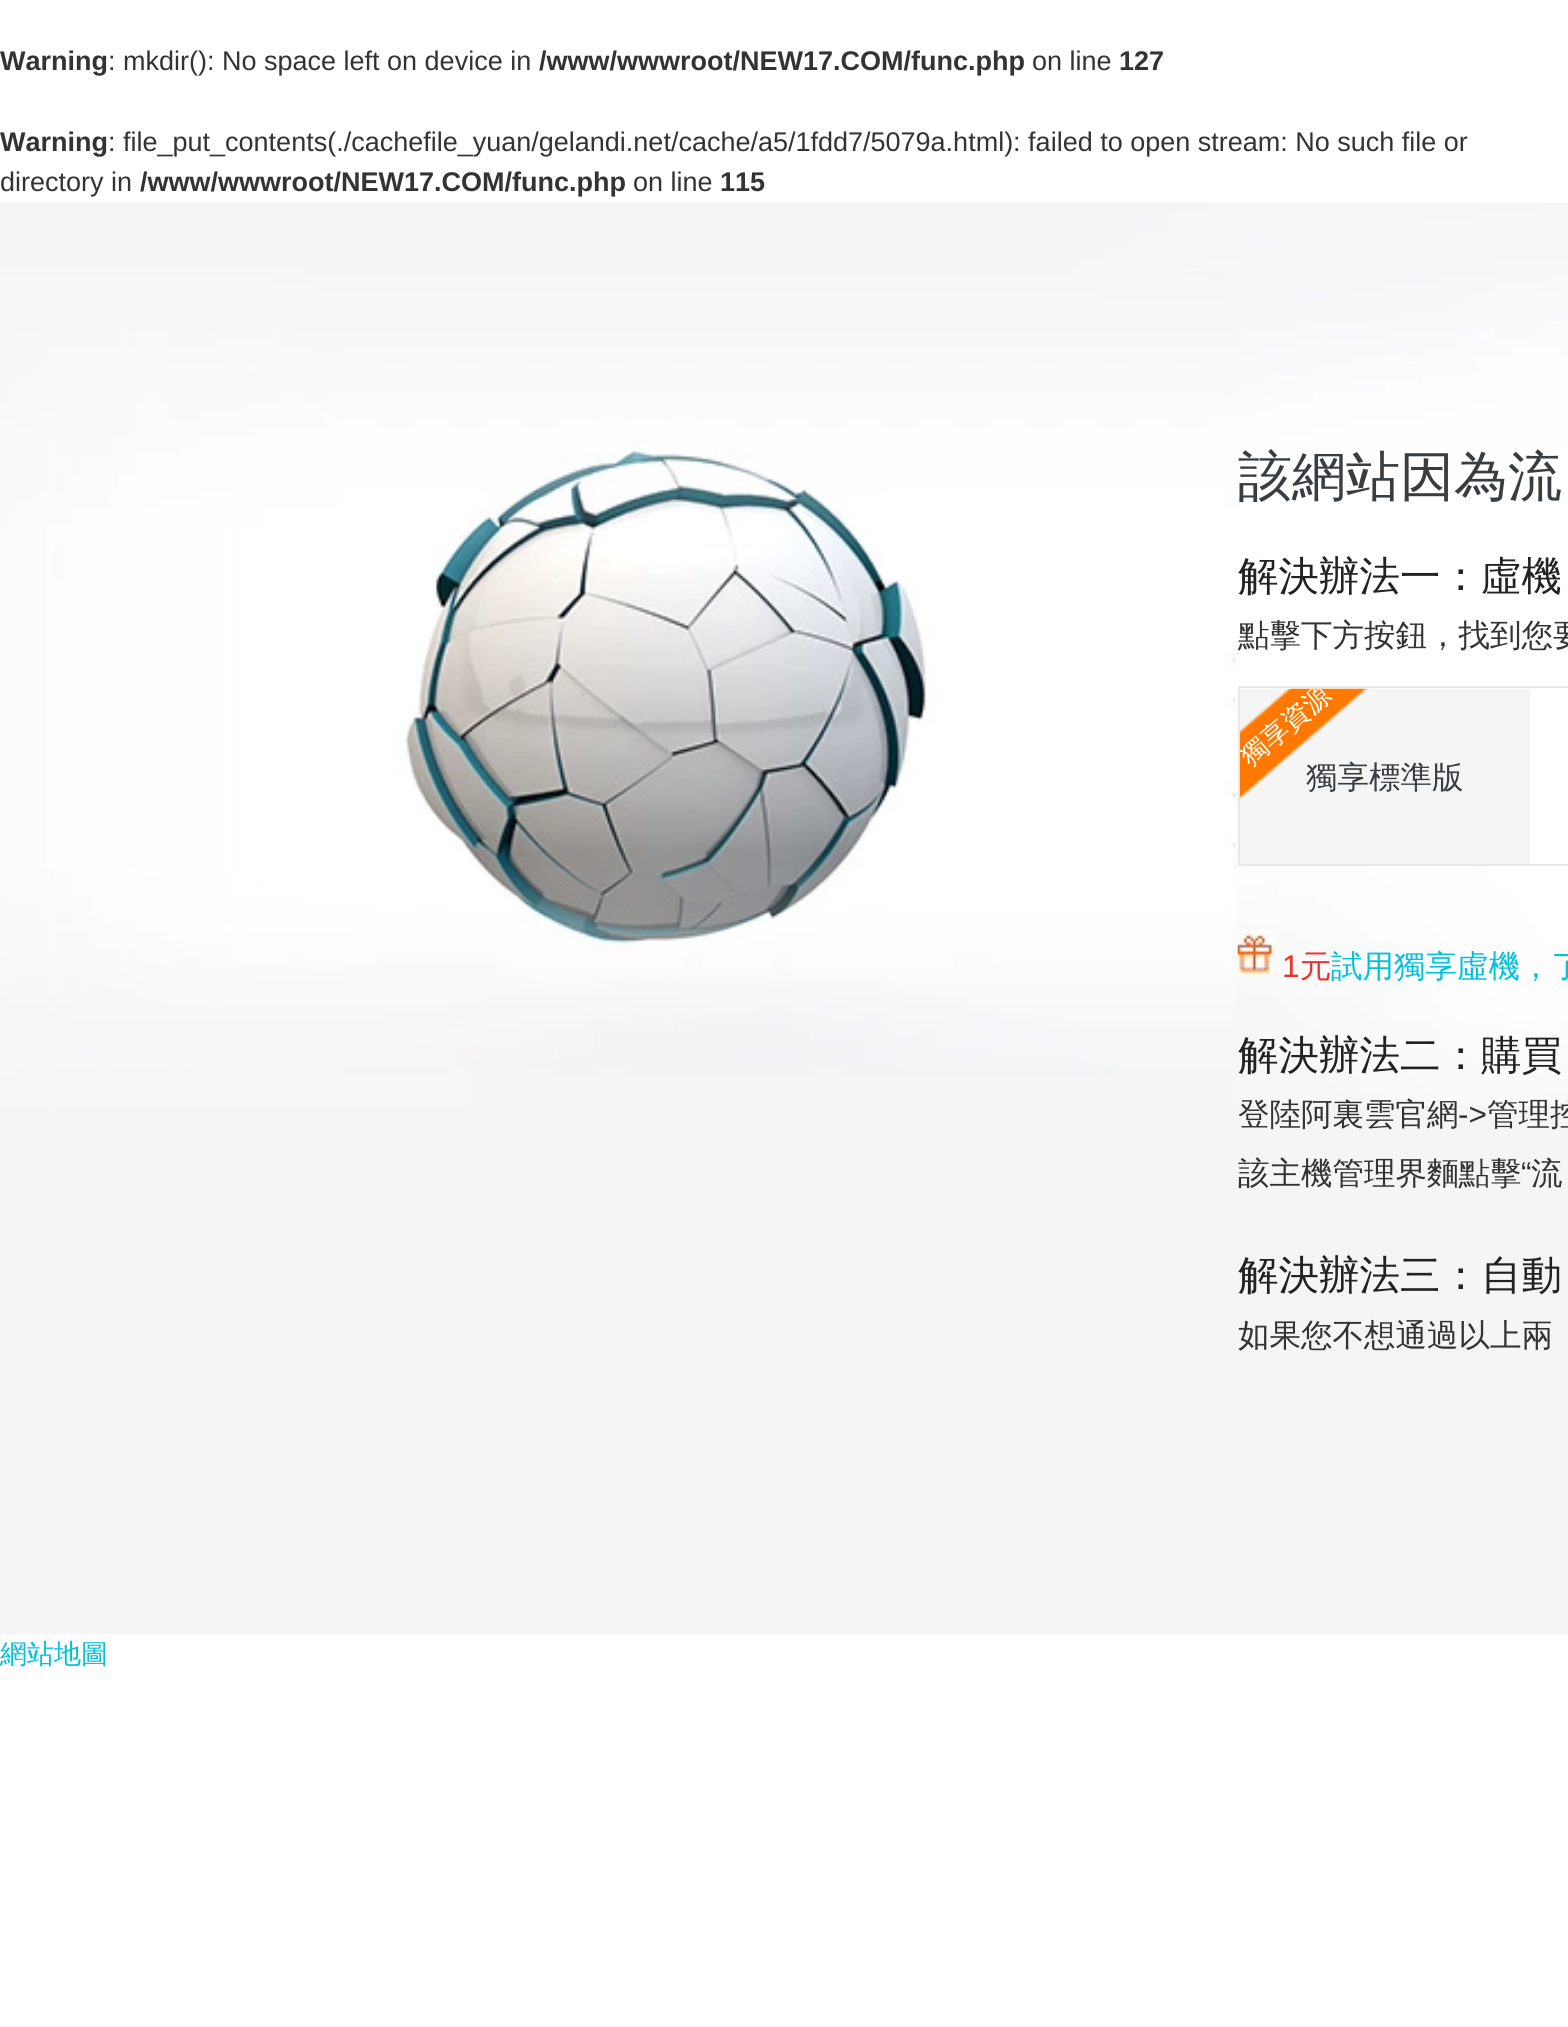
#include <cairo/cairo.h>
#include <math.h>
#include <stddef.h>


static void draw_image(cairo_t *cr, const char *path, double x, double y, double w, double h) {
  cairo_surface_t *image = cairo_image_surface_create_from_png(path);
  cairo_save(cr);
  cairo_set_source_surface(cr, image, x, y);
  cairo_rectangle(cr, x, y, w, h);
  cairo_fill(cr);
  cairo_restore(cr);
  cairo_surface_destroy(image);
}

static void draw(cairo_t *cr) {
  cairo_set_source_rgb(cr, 1, 1, 1);
  cairo_paint(cr);
  cairo_set_source_rgb(cr, 245 / 255.0, 245 / 255.0, 246 / 255.0);
  cairo_rectangle(cr, 0, 1106, 1568, 528);
  cairo_fill(cr);
  draw_image(cr, "images/1.png", 0, 202, 1568, 904);
  cairo_rectangle(cr, 1239, 687, 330, 178);
  cairo_set_source_rgb(cr, 232 / 255.0, 232 / 255.0, 233 / 255.0);
  cairo_stroke(cr);
  draw_image(cr, "images/2.png", 1239, 688, 291, 176);
  draw_image(cr, "images/3.png", 1237, 930, 37, 47);
  cairo_select_font_face(cr, "Liberation Sans", CAIRO_FONT_SLANT_NORMAL, CAIRO_FONT_WEIGHT_BOLD);
  cairo_set_font_size(cr, 27);
  cairo_set_source_rgb(cr, 51 / 255.0, 51 / 255.0, 51 / 255.0);
  cairo_move_to(cr, 0, 70);
  cairo_show_text(cr, "Warning");
  cairo_select_font_face(cr, "Liberation Sans", CAIRO_FONT_SLANT_NORMAL, CAIRO_FONT_WEIGHT_NORMAL);
  cairo_move_to(cr, 108, 70);
  cairo_show_text(cr, ": mkdir(): No space left on device in");
  cairo_select_font_face(cr, "Liberation Sans", CAIRO_FONT_SLANT_NORMAL, CAIRO_FONT_WEIGHT_BOLD);
  cairo_move_to(cr, 539, 70);
  cairo_show_text(cr, "/www/wwwroot/NEW17.COM/func.php");
  cairo_select_font_face(cr, "Liberation Sans", CAIRO_FONT_SLANT_NORMAL, CAIRO_FONT_WEIGHT_NORMAL);
  cairo_move_to(cr, 1032, 70);
  cairo_show_text(cr, "on line");
  cairo_select_font_face(cr, "Liberation Sans", CAIRO_FONT_SLANT_NORMAL, CAIRO_FONT_WEIGHT_BOLD);
  cairo_move_to(cr, 1119, 70);
  cairo_show_text(cr, "127");
  cairo_move_to(cr, 0, 151);
  cairo_show_text(cr, "Warning");
  cairo_select_font_face(cr, "Liberation Sans", CAIRO_FONT_SLANT_NORMAL, CAIRO_FONT_WEIGHT_NORMAL);
  cairo_move_to(cr, 108, 151);
  cairo_show_text(cr, ": file_put_contents(./cachefile_yuan/gelandi.net/cache/a5/1fdd7/5079a.html): failed to open stream: No such file or");
  cairo_move_to(cr, 0, 191);
  cairo_show_text(cr, "directory in");
  cairo_select_font_face(cr, "Liberation Sans", CAIRO_FONT_SLANT_NORMAL, CAIRO_FONT_WEIGHT_BOLD);
  cairo_move_to(cr, 140, 191);
  cairo_show_text(cr, "/www/wwwroot/NEW17.COM/func.php");
  cairo_select_font_face(cr, "Liberation Sans", CAIRO_FONT_SLANT_NORMAL, CAIRO_FONT_WEIGHT_NORMAL);
  cairo_move_to(cr, 633, 191);
  cairo_show_text(cr, "on line");
  cairo_select_font_face(cr, "Liberation Sans", CAIRO_FONT_SLANT_NORMAL, CAIRO_FONT_WEIGHT_BOLD);
  cairo_move_to(cr, 720, 191);
  cairo_show_text(cr, "115");
  cairo_select_font_face(cr, "WenQuanYi Zen Hei Medium", CAIRO_FONT_SLANT_NORMAL, CAIRO_FONT_WEIGHT_NORMAL);
  cairo_set_font_size(cr, 54);
  cairo_set_source_rgb(cr, 55 / 255.0, 61 / 255.0, 65 / 255.0);
  cairo_move_to(cr, 1238, 495);
  cairo_show_text(cr, "該網站因為流");
  cairo_set_font_size(cr, 40.5);
  cairo_set_source_rgb(cr, 34 / 255.0, 34 / 255.0, 33 / 255.0);
  cairo_move_to(cr, 1238, 590);
  cairo_show_text(cr, "解決辦法一：虛機");
  cairo_set_font_size(cr, 31.5);
  cairo_set_source_rgb(cr, 51 / 255.0, 51 / 255.0, 51 / 255.0);
  cairo_move_to(cr, 1238, 646);
  cairo_show_text(cr, "點擊下方按鈕，找到您要");
  cairo_save(cr);
  cairo_rectangle(cr, 1240, 689, 290, 175);
  cairo_clip(cr);
  cairo_set_font_size(cr, 27);
  cairo_set_source_rgb(cr, 254 / 255.0, 1, 1);
  cairo_save(cr);
  cairo_translate(cr, 1250, 767);
  cairo_rotate(cr, -40 * M_PI / 180);
  cairo_move_to(cr, 0, 0);
  cairo_show_text(cr, "獨享資源");
  cairo_restore(cr);
  cairo_restore(cr);
  cairo_set_source_rgb(cr, 55 / 255.0, 61 / 255.0, 65 / 255.0);
  cairo_move_to(cr, 1306, 788);
  cairo_show_text(cr, "獨享標準版");
  cairo_select_font_face(cr, "Liberation Sans", CAIRO_FONT_SLANT_NORMAL, CAIRO_FONT_WEIGHT_NORMAL);
  cairo_set_source_rgb(cr, 229 / 255.0, 51 / 255.0, 51 / 255.0);
  cairo_move_to(cr, 1282, 977);
  cairo_show_text(cr, "1");
  cairo_select_font_face(cr, "WenQuanYi Zen Hei Medium", CAIRO_FONT_SLANT_NORMAL, CAIRO_FONT_WEIGHT_NORMAL);
  cairo_move_to(cr, 1300, 977);
  cairo_show_text(cr, "元");
  cairo_set_source_rgb(cr, 0, 193 / 255.0, 222 / 255.0);
  cairo_move_to(cr, 1331, 977);
  cairo_show_text(cr, "試用獨享虛機，了");
  cairo_set_font_size(cr, 40.5);
  cairo_set_source_rgb(cr, 34 / 255.0, 34 / 255.0, 33 / 255.0);
  cairo_move_to(cr, 1238, 1069);
  cairo_show_text(cr, "解決辦法二：購買");
  cairo_set_font_size(cr, 31.5);
  cairo_set_source_rgb(cr, 51 / 255.0, 51 / 255.0, 51 / 255.0);
  cairo_move_to(cr, 1238, 1125);
  cairo_show_text(cr, "登陸阿裏雲官網");
  cairo_select_font_face(cr, "Liberation Sans", CAIRO_FONT_SLANT_NORMAL, CAIRO_FONT_WEIGHT_NORMAL);
  cairo_move_to(cr, 1458, 1125);
  cairo_show_text(cr, "->");
  cairo_select_font_face(cr, "WenQuanYi Zen Hei Medium", CAIRO_FONT_SLANT_NORMAL, CAIRO_FONT_WEIGHT_NORMAL);
  cairo_move_to(cr, 1487, 1125);
  cairo_show_text(cr, "管理控");
  cairo_move_to(cr, 1238, 1184);
  cairo_show_text(cr, "該主機管理界麵點擊");
  cairo_select_font_face(cr, "Liberation Sans", CAIRO_FONT_SLANT_NORMAL, CAIRO_FONT_WEIGHT_NORMAL);
  cairo_move_to(cr, 1521, 1184);
  cairo_show_text(cr, "“");
  cairo_select_font_face(cr, "WenQuanYi Zen Hei Medium", CAIRO_FONT_SLANT_NORMAL, CAIRO_FONT_WEIGHT_NORMAL);
  cairo_move_to(cr, 1531, 1184);
  cairo_show_text(cr, "流");
  cairo_set_font_size(cr, 40.5);
  cairo_set_source_rgb(cr, 34 / 255.0, 34 / 255.0, 33 / 255.0);
  cairo_move_to(cr, 1238, 1289);
  cairo_show_text(cr, "解決辦法三：自動");
  cairo_set_font_size(cr, 31.5);
  cairo_set_source_rgb(cr, 51 / 255.0, 51 / 255.0, 51 / 255.0);
  cairo_move_to(cr, 1238, 1346);
  cairo_show_text(cr, "如果您不想通過以上兩");
  cairo_set_font_size(cr, 27);
  cairo_set_source_rgb(cr, 0, 193 / 255.0, 222 / 255.0);
  cairo_move_to(cr, 0, 1663);
  cairo_show_text(cr, "網站地圖");
}

int main(void) {
  cairo_surface_t *surface = cairo_image_surface_create(CAIRO_FORMAT_RGB24, 1568, 2027);
  cairo_t *cr = cairo_create(surface);
  cairo_font_options_t *options = cairo_font_options_create();
  cairo_font_options_set_hint_metrics(options, CAIRO_HINT_METRICS_OFF);
  cairo_font_options_set_hint_style(options, CAIRO_HINT_STYLE_NONE);
  cairo_set_font_options(cr, options);
  cairo_set_miter_limit(cr, 4);
  draw(cr);
  cairo_surface_write_to_png(surface, "out.png");
  cairo_font_options_destroy(options);
  cairo_destroy(cr);
  cairo_surface_destroy(surface);
  return 0;
}
